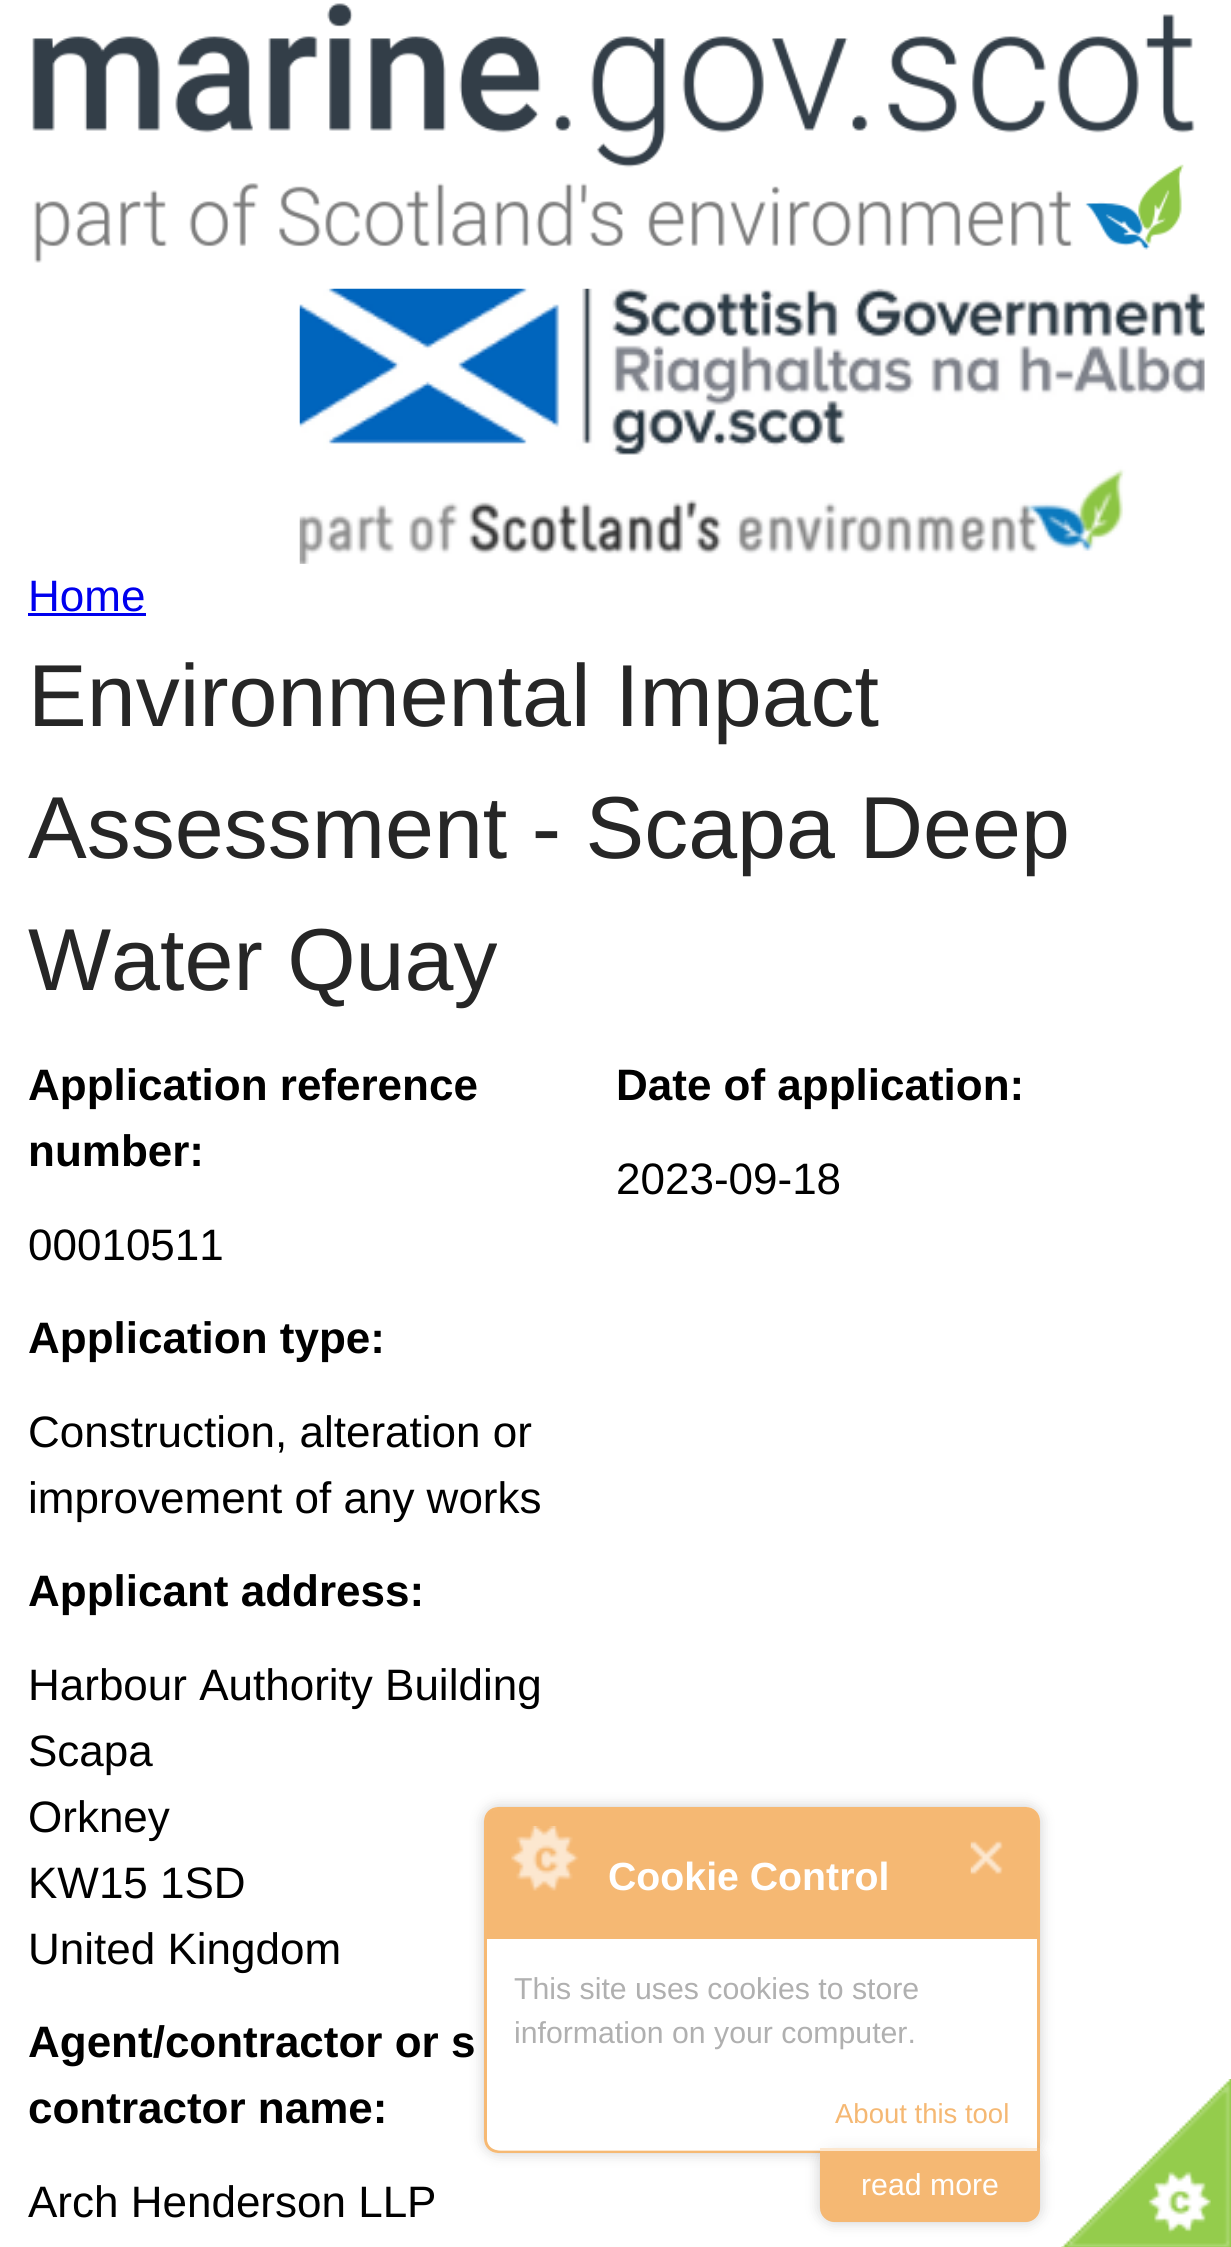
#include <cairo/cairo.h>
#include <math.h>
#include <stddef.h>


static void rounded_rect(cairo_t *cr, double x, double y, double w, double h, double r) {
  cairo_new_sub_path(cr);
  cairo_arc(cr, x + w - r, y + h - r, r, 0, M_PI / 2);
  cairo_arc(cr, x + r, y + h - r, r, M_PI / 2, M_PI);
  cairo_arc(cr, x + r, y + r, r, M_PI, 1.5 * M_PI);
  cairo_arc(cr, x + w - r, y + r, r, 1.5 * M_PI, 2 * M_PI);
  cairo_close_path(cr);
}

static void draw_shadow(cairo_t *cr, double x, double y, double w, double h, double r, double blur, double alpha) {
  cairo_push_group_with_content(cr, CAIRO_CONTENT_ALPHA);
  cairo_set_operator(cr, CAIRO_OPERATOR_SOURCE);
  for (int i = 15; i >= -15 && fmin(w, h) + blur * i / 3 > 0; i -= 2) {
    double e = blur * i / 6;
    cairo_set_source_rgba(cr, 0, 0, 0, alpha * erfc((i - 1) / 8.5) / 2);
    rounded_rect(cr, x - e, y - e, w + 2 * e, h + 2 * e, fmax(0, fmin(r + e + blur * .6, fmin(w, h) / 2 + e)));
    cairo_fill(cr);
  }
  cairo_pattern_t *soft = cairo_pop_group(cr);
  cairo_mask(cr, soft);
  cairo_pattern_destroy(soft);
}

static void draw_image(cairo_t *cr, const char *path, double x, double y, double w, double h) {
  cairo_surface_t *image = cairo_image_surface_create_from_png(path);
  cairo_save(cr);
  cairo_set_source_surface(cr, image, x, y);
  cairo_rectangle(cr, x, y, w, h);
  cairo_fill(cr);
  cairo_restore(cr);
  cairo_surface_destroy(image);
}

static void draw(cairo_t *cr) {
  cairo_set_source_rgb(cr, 1, 1, 1);
  cairo_paint(cr);
  draw_image(cr, "images/1.png", 32, 3, 1163, 260);
  draw_image(cr, "images/2.png", 299, 288, 906, 276);
  cairo_set_source_rgb(cr, 0, 0, 238 / 255.0);
  cairo_rectangle(cr, 28, 613, 118, 3);
  cairo_fill(cr);
  draw_image(cr, "images/5.png", 1061, 2079, 170, 168);
  cairo_save(cr);
  cairo_set_fill_rule(cr, CAIRO_FILL_RULE_EVEN_ODD);
  cairo_new_path(cr);
  cairo_move_to(cr, 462, 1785);
  cairo_line_to(cr, 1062, 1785);
  cairo_line_to(cr, 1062, 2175);
  cairo_line_to(cr, 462, 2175);
  cairo_close_path(cr);
  cairo_move_to(cr, 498, 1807);
  cairo_line_to(cr, 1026, 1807);
  cairo_curve_to(cr, 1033.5, 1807, 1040, 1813.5, 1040, 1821);
  cairo_line_to(cr, 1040, 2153);
  cairo_line_to(cr, 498, 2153);
  cairo_curve_to(cr, 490.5, 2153, 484, 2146.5, 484, 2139);
  cairo_line_to(cr, 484, 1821);
  cairo_curve_to(cr, 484, 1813.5, 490.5, 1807, 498, 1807);
  cairo_close_path(cr);
  cairo_clip(cr);
  cairo_set_source_rgb(cr, 0, 0, 0);
  draw_shadow(cr, 484, 1807, 556, 346, 14, 7, 0.2);
  cairo_restore(cr);
  cairo_set_source_rgba(cr, 1, 1, 1, 0.66);
  cairo_new_path(cr);
  cairo_move_to(cr, 498, 1807);
  cairo_line_to(cr, 1026, 1807);
  cairo_curve_to(cr, 1033.5, 1807, 1040, 1813.5, 1040, 1821);
  cairo_line_to(cr, 1040, 2153);
  cairo_line_to(cr, 498, 2153);
  cairo_curve_to(cr, 490.5, 2153, 484, 2146.5, 484, 2139);
  cairo_line_to(cr, 484, 1821);
  cairo_curve_to(cr, 484, 1813.5, 490.5, 1807, 498, 1807);
  cairo_close_path(cr);
  cairo_fill(cr);
  cairo_new_path(cr);
  cairo_move_to(cr, 498, 1808.5);
  cairo_line_to(cr, 1026, 1808.5);
  cairo_curve_to(cr, 1033, 1808.5, 1038.5, 1814, 1038.5, 1821);
  cairo_line_to(cr, 1038.5, 2151.5);
  cairo_line_to(cr, 498, 2151.5);
  cairo_curve_to(cr, 491, 2151.5, 485.5, 2146, 485.5, 2139);
  cairo_line_to(cr, 485.5, 1821);
  cairo_curve_to(cr, 485.5, 1814, 491, 1808.5, 498, 1808.5);
  cairo_close_path(cr);
  cairo_set_source_rgba(cr, 240 / 255.0, 148 / 255.0, 43 / 255.0, 0.66);
  cairo_set_line_width(cr, 3);
  cairo_stroke(cr);
  cairo_set_source_rgb(cr, 87 / 255.0, 87 / 255.0, 87 / 255.0);
  draw_shadow(cr, 820, 2148, 220, 74, 14, 7, 0.3);
  cairo_set_source_rgb(cr, 245 / 255.0, 184 / 255.0, 115 / 255.0);
  cairo_new_path(cr);
  cairo_move_to(cr, 820, 2148);
  cairo_line_to(cr, 1040, 2148);
  cairo_line_to(cr, 1040, 2208);
  cairo_curve_to(cr, 1040, 2215.5, 1033.5, 2222, 1026, 2222);
  cairo_line_to(cr, 834, 2222);
  cairo_curve_to(cr, 826.5, 2222, 820, 2215.5, 820, 2208);
  cairo_close_path(cr);
  cairo_fill(cr);
  cairo_set_source_rgba(cr, 1, 1, 1, 0.66);
  cairo_new_path(cr);
  cairo_move_to(cr, 501, 1810);
  cairo_line_to(cr, 1023, 1810);
  cairo_curve_to(cr, 1030.5, 1810, 1037, 1816.5, 1037, 1824);
  cairo_line_to(cr, 1037, 2151);
  cairo_line_to(cr, 501, 2151);
  cairo_curve_to(cr, 493.5, 2151, 487, 2144.5, 487, 2137);
  cairo_line_to(cr, 487, 1824);
  cairo_curve_to(cr, 487, 1816.5, 493.5, 1810, 501, 1810);
  cairo_close_path(cr);
  cairo_fill(cr);
  cairo_set_source_rgb(cr, 245 / 255.0, 184 / 255.0, 115 / 255.0);
  cairo_new_path(cr);
  cairo_move_to(cr, 495, 1810);
  cairo_line_to(cr, 1029, 1810);
  cairo_curve_to(cr, 1033.5, 1810, 1037, 1813.5, 1037, 1818);
  cairo_line_to(cr, 1037, 1939);
  cairo_line_to(cr, 487, 1939);
  cairo_line_to(cr, 487, 1818);
  cairo_curve_to(cr, 487, 1813.5, 490.5, 1810, 495, 1810);
  cairo_close_path(cr);
  cairo_fill(cr);
  draw_image(cr, "images/3.png", 511, 1826, 68, 65);
  draw_image(cr, "images/4.png", 970, 1840, 33, 35);
  cairo_select_font_face(cr, "Liberation Sans", CAIRO_FONT_SLANT_NORMAL, CAIRO_FONT_WEIGHT_NORMAL);
  cairo_set_font_size(cr, 44);
  cairo_set_source_rgb(cr, 0, 0, 238 / 255.0);
  cairo_move_to(cr, 28, 611);
  cairo_show_text(cr, "Home");
  cairo_set_font_size(cr, 88);
  cairo_set_source_rgb(cr, 38 / 255.0, 38 / 255.0, 38 / 255.0);
  cairo_move_to(cr, 28, 726);
  cairo_show_text(cr, "Environmental Impact");
  cairo_move_to(cr, 28, 858);
  cairo_show_text(cr, "Assessment - Scapa Deep");
  cairo_move_to(cr, 28, 990);
  cairo_show_text(cr, "Water Quay");
  cairo_select_font_face(cr, "Liberation Sans", CAIRO_FONT_SLANT_NORMAL, CAIRO_FONT_WEIGHT_BOLD);
  cairo_set_font_size(cr, 44);
  cairo_set_source_rgb(cr, 0, 0, 0);
  cairo_move_to(cr, 28, 1100);
  cairo_show_text(cr, "Application reference");
  cairo_move_to(cr, 28, 1166);
  cairo_show_text(cr, "number:");
  cairo_select_font_face(cr, "Liberation Sans", CAIRO_FONT_SLANT_NORMAL, CAIRO_FONT_WEIGHT_NORMAL);
  cairo_move_to(cr, 28, 1260);
  cairo_show_text(cr, "00010511");
  cairo_select_font_face(cr, "Liberation Sans", CAIRO_FONT_SLANT_NORMAL, CAIRO_FONT_WEIGHT_BOLD);
  cairo_move_to(cr, 28, 1353);
  cairo_show_text(cr, "Application type:");
  cairo_select_font_face(cr, "Liberation Sans", CAIRO_FONT_SLANT_NORMAL, CAIRO_FONT_WEIGHT_NORMAL);
  cairo_move_to(cr, 28, 1447);
  cairo_show_text(cr, "Construction, alteration or");
  cairo_move_to(cr, 28, 1513);
  cairo_show_text(cr, "improvement of any works");
  cairo_select_font_face(cr, "Liberation Sans", CAIRO_FONT_SLANT_NORMAL, CAIRO_FONT_WEIGHT_BOLD);
  cairo_move_to(cr, 28, 1606);
  cairo_show_text(cr, "Applicant address:");
  cairo_select_font_face(cr, "Liberation Sans", CAIRO_FONT_SLANT_NORMAL, CAIRO_FONT_WEIGHT_NORMAL);
  cairo_move_to(cr, 28, 1700);
  cairo_show_text(cr, "Harbour Authority Building");
  cairo_move_to(cr, 28, 1766);
  cairo_show_text(cr, "Scapa");
  cairo_move_to(cr, 28, 1832);
  cairo_show_text(cr, "Orkney");
  cairo_move_to(cr, 28, 1898);
  cairo_show_text(cr, "KW15 1SD");
  cairo_move_to(cr, 28, 1964);
  cairo_show_text(cr, "United Kingdom");
  cairo_select_font_face(cr, "Liberation Sans", CAIRO_FONT_SLANT_NORMAL, CAIRO_FONT_WEIGHT_BOLD);
  cairo_move_to(cr, 28, 2057);
  cairo_show_text(cr, "Agent/contractor or s");
  cairo_move_to(cr, 28, 2123);
  cairo_show_text(cr, "contractor name:");
  cairo_select_font_face(cr, "Liberation Sans", CAIRO_FONT_SLANT_NORMAL, CAIRO_FONT_WEIGHT_NORMAL);
  cairo_move_to(cr, 28, 2217);
  cairo_show_text(cr, "Arch Henderson LLP");
  cairo_select_font_face(cr, "Liberation Sans", CAIRO_FONT_SLANT_NORMAL, CAIRO_FONT_WEIGHT_BOLD);
  cairo_move_to(cr, 616, 1100);
  cairo_show_text(cr, "Date of application:");
  cairo_select_font_face(cr, "Liberation Sans", CAIRO_FONT_SLANT_NORMAL, CAIRO_FONT_WEIGHT_NORMAL);
  cairo_move_to(cr, 616, 1194);
  cairo_show_text(cr, "2023-09-18");
  cairo_select_font_face(cr, "Liberation Sans", CAIRO_FONT_SLANT_NORMAL, CAIRO_FONT_WEIGHT_BOLD);
  cairo_set_font_size(cr, 39.25);
  cairo_set_source_rgb(cr, 1, 1, 1);
  cairo_move_to(cr, 608, 1890);
  cairo_show_text(cr, "Cookie Control");
  cairo_select_font_face(cr, "Liberation Sans", CAIRO_FONT_SLANT_NORMAL, CAIRO_FONT_WEIGHT_NORMAL);
  cairo_set_font_size(cr, 30.25);
  cairo_set_source_rgb(cr, 176 / 255.0, 176 / 255.0, 176 / 255.0);
  cairo_move_to(cr, 514, 1999);
  cairo_show_text(cr, "This site uses cookies to store");
  cairo_move_to(cr, 514, 2043);
  cairo_show_text(cr, "information on your computer.");
  cairo_set_font_size(cr, 27.5);
  cairo_set_source_rgb(cr, 245 / 255.0, 184 / 255.0, 115 / 255.0);
  cairo_move_to(cr, 835, 2123);
  cairo_show_text(cr, "About this tool");
  cairo_set_font_size(cr, 30.25);
  cairo_set_source_rgb(cr, 1, 1, 1);
  cairo_move_to(cr, 861, 2195);
  cairo_show_text(cr, "read more");
}

int main(void) {
  cairo_surface_t *surface = cairo_image_surface_create(CAIRO_FORMAT_RGB24, 1231, 2247);
  cairo_t *cr = cairo_create(surface);
  cairo_font_options_t *options = cairo_font_options_create();
  cairo_font_options_set_hint_metrics(options, CAIRO_HINT_METRICS_OFF);
  cairo_font_options_set_hint_style(options, CAIRO_HINT_STYLE_NONE);
  cairo_set_font_options(cr, options);
  cairo_set_miter_limit(cr, 4);
  draw(cr);
  cairo_surface_write_to_png(surface, "out.png");
  cairo_font_options_destroy(options);
  cairo_destroy(cr);
  cairo_surface_destroy(surface);
  return 0;
}
